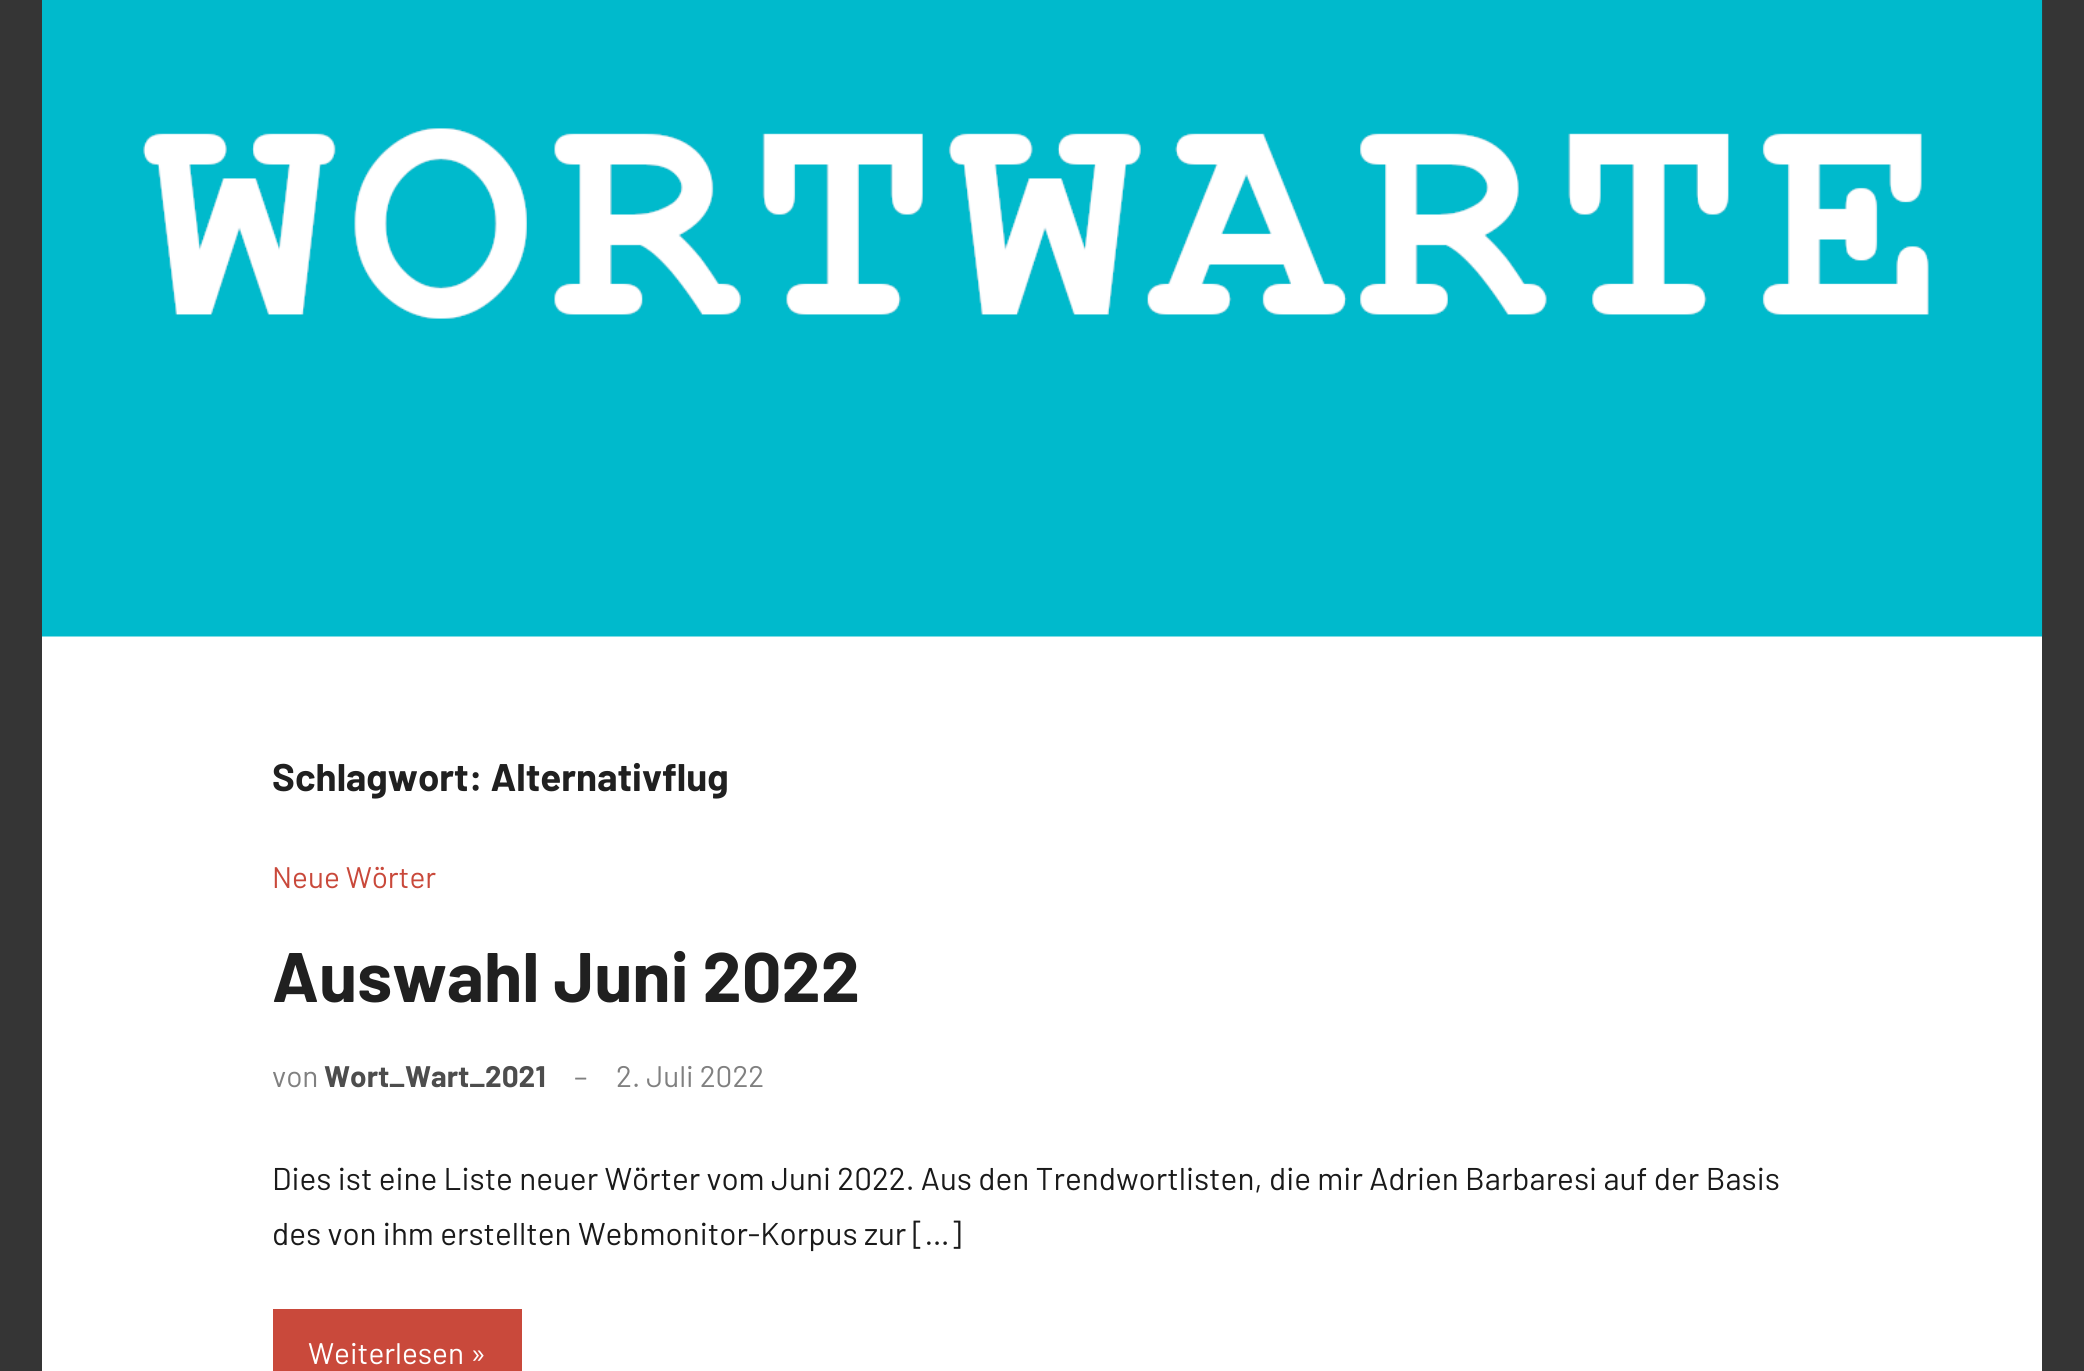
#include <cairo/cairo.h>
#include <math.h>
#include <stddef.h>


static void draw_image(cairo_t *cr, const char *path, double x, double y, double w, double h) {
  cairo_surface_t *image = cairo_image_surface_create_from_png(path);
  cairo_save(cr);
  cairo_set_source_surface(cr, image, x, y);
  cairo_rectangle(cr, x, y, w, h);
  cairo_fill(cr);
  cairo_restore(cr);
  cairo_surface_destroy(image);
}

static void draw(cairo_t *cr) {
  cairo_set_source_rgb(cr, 53 / 255.0, 53 / 255.0, 53 / 255.0);
  cairo_paint(cr);
  cairo_set_source_rgb(cr, 1, 1, 1);
  cairo_rectangle(cr, 42, 636, 2000, 735);
  cairo_fill(cr);
  draw_image(cr, "images/1.png", 42, 0, 2001, 637);
  cairo_set_source_rgb(cr, 201 / 255.0, 73 / 255.0, 59 / 255.0);
  cairo_rectangle(cr, 273, 1309, 249, 62);
  cairo_fill(cr);
  cairo_select_font_face(cr, "Barlow", CAIRO_FONT_SLANT_NORMAL, CAIRO_FONT_WEIGHT_BOLD);
  cairo_set_font_size(cr, 38.5);
  cairo_set_source_rgb(cr, 32 / 255.0, 32 / 255.0, 32 / 255.0);
  cairo_move_to(cr, 272, 791);
  cairo_show_text(cr, "Schlagwort: Alternativflug");
  cairo_select_font_face(cr, "Barlow", CAIRO_FONT_SLANT_NORMAL, CAIRO_FONT_WEIGHT_NORMAL);
  cairo_set_font_size(cr, 29.75);
  cairo_set_source_rgb(cr, 201 / 255.0, 73 / 255.0, 59 / 255.0);
  cairo_move_to(cr, 272, 888);
  cairo_show_text(cr, "Neue Wörter");
  cairo_select_font_face(cr, "Barlow", CAIRO_FONT_SLANT_NORMAL, CAIRO_FONT_WEIGHT_BOLD);
  cairo_set_font_size(cr, 70);
  cairo_set_source_rgb(cr, 32 / 255.0, 32 / 255.0, 32 / 255.0);
  cairo_move_to(cr, 272, 1002);
  cairo_show_text(cr, "Auswahl Juni 2022");
  cairo_select_font_face(cr, "Barlow", CAIRO_FONT_SLANT_NORMAL, CAIRO_FONT_WEIGHT_NORMAL);
  cairo_set_font_size(cr, 29.75);
  cairo_set_source_rgb(cr, 128 / 255.0, 128 / 255.0, 128 / 255.0);
  cairo_move_to(cr, 272, 1087);
  cairo_show_text(cr, "von");
  cairo_select_font_face(cr, "Barlow", CAIRO_FONT_SLANT_NORMAL, CAIRO_FONT_WEIGHT_BOLD);
  cairo_set_source_rgb(cr, 77 / 255.0, 77 / 255.0, 77 / 255.0);
  cairo_move_to(cr, 324, 1087);
  cairo_show_text(cr, "Wort_Wart_2021");
  cairo_select_font_face(cr, "Barlow", CAIRO_FONT_SLANT_NORMAL, CAIRO_FONT_WEIGHT_NORMAL);
  cairo_set_source_rgb(cr, 128 / 255.0, 128 / 255.0, 128 / 255.0);
  cairo_move_to(cr, 574, 1087);
  cairo_show_text(cr, "–");
  cairo_move_to(cr, 616, 1087);
  cairo_show_text(cr, "2. Juli 2022");
  cairo_set_font_size(cr, 31.5);
  cairo_set_source_rgb(cr, 26 / 255.0, 26 / 255.0, 26 / 255.0);
  cairo_move_to(cr, 272, 1190);
  cairo_show_text(cr, "Dies ist eine Liste neuer Wörter vom Juni 2022. Aus den Trendwortlisten, die mir Adrien Barbaresi auf der Basis");
  cairo_move_to(cr, 272, 1245);
  cairo_show_text(cr, "des von ihm erstellten Webmonitor-Korpus zur […]");
  cairo_set_font_size(cr, 29.75);
  cairo_set_source_rgb(cr, 1, 1, 1);
  cairo_move_to(cr, 308, 1364);
  cairo_show_text(cr, "Weiterlesen »");
}

int main(void) {
  cairo_surface_t *surface = cairo_image_surface_create(CAIRO_FORMAT_RGB24, 2084, 1371);
  cairo_t *cr = cairo_create(surface);
  cairo_font_options_t *options = cairo_font_options_create();
  cairo_font_options_set_hint_metrics(options, CAIRO_HINT_METRICS_OFF);
  cairo_font_options_set_hint_style(options, CAIRO_HINT_STYLE_NONE);
  cairo_set_font_options(cr, options);
  cairo_set_miter_limit(cr, 4);
  draw(cr);
  cairo_surface_write_to_png(surface, "out.png");
  cairo_font_options_destroy(options);
  cairo_destroy(cr);
  cairo_surface_destroy(surface);
  return 0;
}
